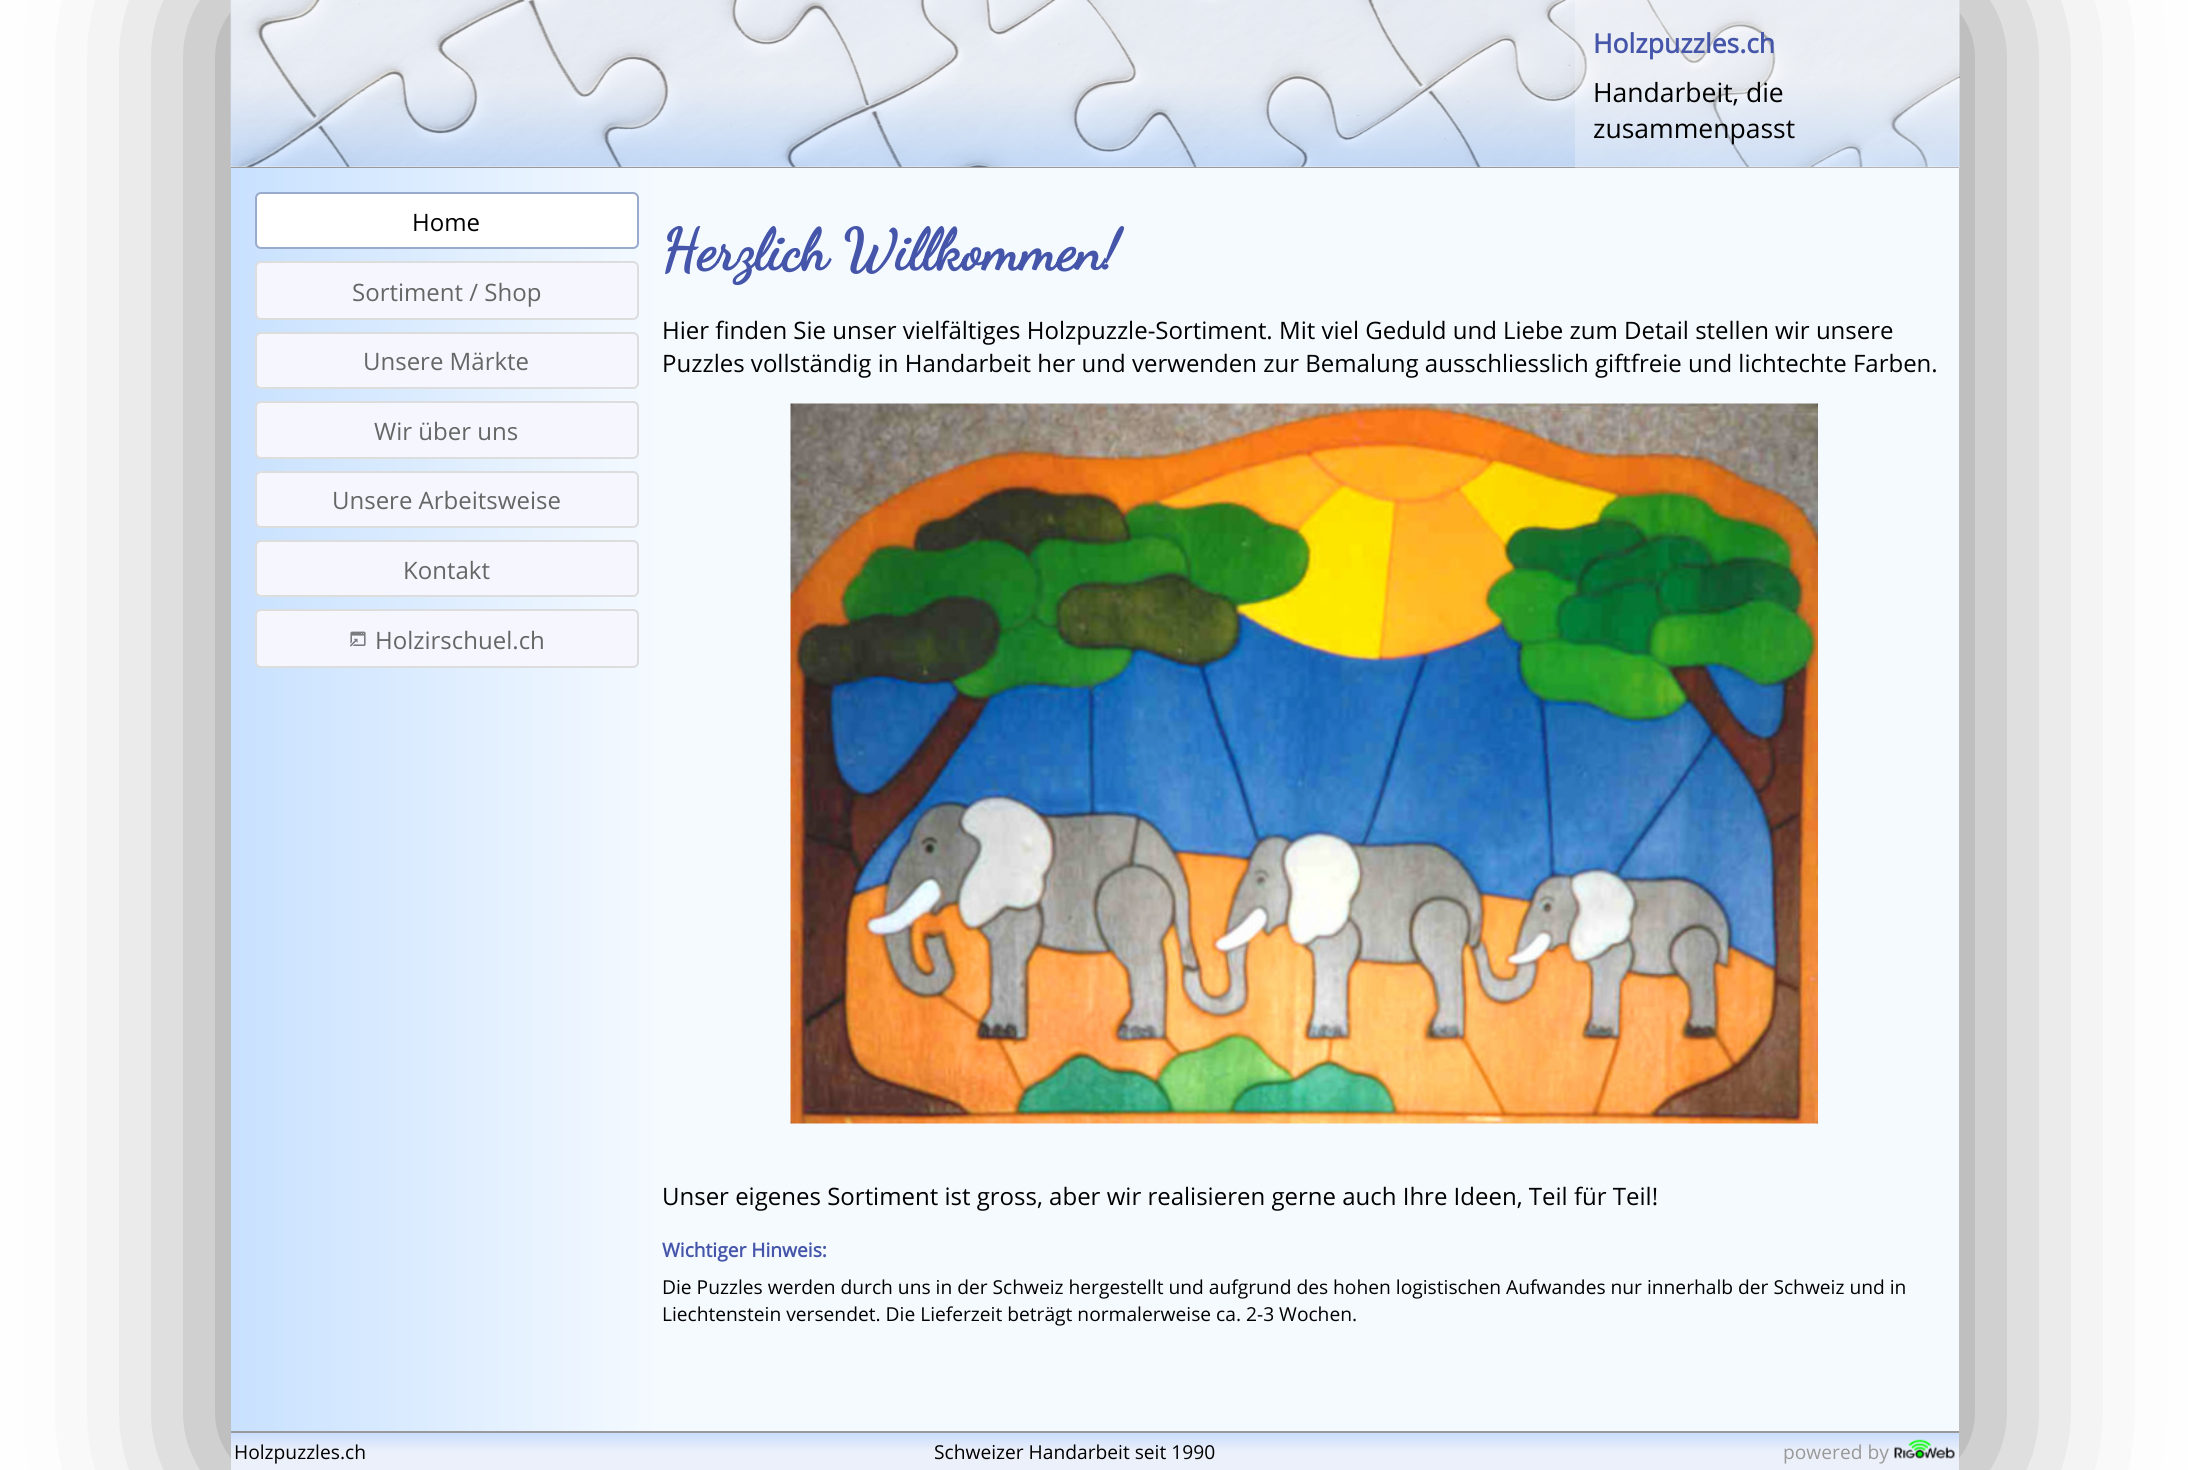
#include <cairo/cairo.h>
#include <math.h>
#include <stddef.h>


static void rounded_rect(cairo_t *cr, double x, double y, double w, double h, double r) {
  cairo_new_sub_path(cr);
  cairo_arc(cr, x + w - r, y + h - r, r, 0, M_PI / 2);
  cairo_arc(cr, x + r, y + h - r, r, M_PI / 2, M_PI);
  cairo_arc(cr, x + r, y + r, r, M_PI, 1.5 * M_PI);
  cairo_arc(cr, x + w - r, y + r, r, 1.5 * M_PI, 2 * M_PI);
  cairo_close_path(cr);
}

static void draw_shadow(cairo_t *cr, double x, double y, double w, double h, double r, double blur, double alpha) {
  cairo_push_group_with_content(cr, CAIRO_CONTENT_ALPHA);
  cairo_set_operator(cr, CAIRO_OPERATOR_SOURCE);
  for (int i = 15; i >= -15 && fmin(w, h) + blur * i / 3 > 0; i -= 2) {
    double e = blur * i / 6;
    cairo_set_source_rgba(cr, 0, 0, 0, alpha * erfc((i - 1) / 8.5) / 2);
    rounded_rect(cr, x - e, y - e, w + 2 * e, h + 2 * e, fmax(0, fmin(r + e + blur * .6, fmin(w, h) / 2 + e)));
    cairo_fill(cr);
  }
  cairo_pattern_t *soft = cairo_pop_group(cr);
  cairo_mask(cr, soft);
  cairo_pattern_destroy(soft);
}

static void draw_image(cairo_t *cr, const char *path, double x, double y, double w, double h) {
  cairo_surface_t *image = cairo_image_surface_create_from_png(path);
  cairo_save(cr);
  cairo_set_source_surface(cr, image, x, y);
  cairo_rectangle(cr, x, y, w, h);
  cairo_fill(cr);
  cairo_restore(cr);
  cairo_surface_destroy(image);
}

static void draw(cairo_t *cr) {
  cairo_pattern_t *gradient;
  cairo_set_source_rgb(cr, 1, 1, 1);
  cairo_paint(cr);
  cairo_set_source_rgb(cr, 0, 0, 0);
  draw_shadow(cr, 231, 0, 1728, 1470, 0, 96, 0.5);
  gradient = cairo_pattern_create_linear(231, 735, 1959, 735);
  cairo_pattern_add_color_stop_rgba(gradient, 0, 200 / 255.0, 225 / 255.0, 1, 1);
  cairo_pattern_add_color_stop_rgba(gradient, 0.25, 245 / 255.0, 250 / 255.0, 1, 1);
  cairo_set_source(cr, gradient);
  cairo_pattern_destroy(gradient);
  cairo_rectangle(cr, 231, 0, 1728, 1431);
  cairo_fill(cr);
  draw_image(cr, "images/1.png", 230, 0, 1730, 168);
  cairo_set_source_rgb(cr, 153 / 255.0, 153 / 255.0, 153 / 255.0);
  cairo_rectangle(cr, 231, 167, 1728, 1);
  cairo_fill(cr);
  cairo_set_source_rgba(cr, 1, 1, 1, 0.25);
  cairo_rectangle(cr, 1575, 0, 384, 168);
  cairo_fill(cr);
  cairo_set_source_rgb(cr, 1, 1, 1);
  rounded_rect(cr, 256, 193, 382, 55, 5);
  cairo_fill_preserve(cr);
  cairo_set_source_rgb(cr, 153 / 255.0, 170 / 255.0, 204 / 255.0);
  cairo_stroke(cr);
  cairo_set_source_rgb(cr, 246 / 255.0, 246 / 255.0, 1);
  rounded_rect(cr, 256, 262, 382, 57, 5);
  cairo_fill_preserve(cr);
  cairo_set_source_rgb(cr, 221 / 255.0, 221 / 255.0, 221 / 255.0);
  cairo_stroke(cr);
  cairo_set_source_rgb(cr, 246 / 255.0, 246 / 255.0, 1);
  rounded_rect(cr, 256, 333, 382, 55, 5);
  cairo_fill_preserve(cr);
  cairo_set_source_rgb(cr, 221 / 255.0, 221 / 255.0, 221 / 255.0);
  cairo_stroke(cr);
  cairo_set_source_rgb(cr, 246 / 255.0, 246 / 255.0, 1);
  rounded_rect(cr, 256, 402, 382, 56, 5);
  cairo_fill_preserve(cr);
  cairo_set_source_rgb(cr, 221 / 255.0, 221 / 255.0, 221 / 255.0);
  cairo_stroke(cr);
  cairo_set_source_rgb(cr, 246 / 255.0, 246 / 255.0, 1);
  rounded_rect(cr, 256, 472, 382, 55, 5);
  cairo_fill_preserve(cr);
  cairo_set_source_rgb(cr, 221 / 255.0, 221 / 255.0, 221 / 255.0);
  cairo_stroke(cr);
  cairo_set_source_rgb(cr, 246 / 255.0, 246 / 255.0, 1);
  rounded_rect(cr, 256, 541, 382, 55, 5);
  cairo_fill_preserve(cr);
  cairo_set_source_rgb(cr, 221 / 255.0, 221 / 255.0, 221 / 255.0);
  cairo_stroke(cr);
  cairo_set_source_rgb(cr, 246 / 255.0, 246 / 255.0, 1);
  rounded_rect(cr, 256, 610, 382, 57, 5);
  cairo_fill_preserve(cr);
  cairo_set_source_rgb(cr, 221 / 255.0, 221 / 255.0, 221 / 255.0);
  cairo_stroke(cr);
  draw_image(cr, "images/2.png", 350, 631, 16, 16);
  draw_image(cr, "images/3.png", 790, 403, 1028, 721);
  gradient = cairo_pattern_create_linear(1095, 1432, 1095, 1470);
  cairo_pattern_add_color_stop_rgba(gradient, 0, 200 / 255.0, 220 / 255.0, 1, 1);
  cairo_pattern_add_color_stop_rgba(gradient, 0.5, 235 / 255.0, 240 / 255.0, 250 / 255.0, 1);
  cairo_set_source(cr, gradient);
  cairo_pattern_destroy(gradient);
  cairo_rectangle(cr, 231, 1433, 1728, 37);
  cairo_fill(cr);
  cairo_set_source_rgb(cr, 153 / 255.0, 153 / 255.0, 153 / 255.0);
  cairo_rectangle(cr, 231, 1431, 1728, 2);
  cairo_fill(cr);
  draw_image(cr, "images/4.png", 1894, 1439, 61, 20);
  cairo_select_font_face(cr, "Open Sans", CAIRO_FONT_SLANT_NORMAL, CAIRO_FONT_WEIGHT_BOLD);
  cairo_set_font_size(cr, 26.5);
  cairo_set_source_rgb(cr, 68 / 255.0, 85 / 255.0, 170 / 255.0);
  cairo_move_to(cr, 1593, 53);
  cairo_show_text(cr, "Holzpuzzles.ch");
  cairo_select_font_face(cr, "Open Sans", CAIRO_FONT_SLANT_NORMAL, CAIRO_FONT_WEIGHT_NORMAL);
  cairo_set_source_rgb(cr, 0, 0, 0);
  cairo_move_to(cr, 1593, 102);
  cairo_show_text(cr, "Handarbeit, die");
  cairo_move_to(cr, 1593, 138);
  cairo_show_text(cr, "zusammenpasst");
  cairo_set_font_size(cr, 24);
  cairo_move_to(cr, 412, 231);
  cairo_show_text(cr, "Home");
  cairo_set_source_rgb(cr, 102 / 255.0, 102 / 255.0, 102 / 255.0);
  cairo_move_to(cr, 352, 301);
  cairo_show_text(cr, "Sortiment / Shop");
  cairo_move_to(cr, 363, 370);
  cairo_show_text(cr, "Unsere Märkte");
  cairo_move_to(cr, 374, 440);
  cairo_show_text(cr, "Wir über uns");
  cairo_move_to(cr, 332, 509);
  cairo_show_text(cr, "Unsere Arbeitsweise");
  cairo_move_to(cr, 403, 579);
  cairo_show_text(cr, "Kontakt");
  cairo_move_to(cr, 375, 649);
  cairo_show_text(cr, "Holzirschuel.ch");
  cairo_select_font_face(cr, "Dancing Script", CAIRO_FONT_SLANT_NORMAL, CAIRO_FONT_WEIGHT_BOLD);
  cairo_set_font_size(cr, 57.5);
  cairo_set_source_rgb(cr, 68 / 255.0, 85 / 255.0, 170 / 255.0);
  cairo_move_to(cr, 662, 269);
  cairo_show_text(cr, "Herzlich Willkommen!");
  cairo_select_font_face(cr, "Open Sans", CAIRO_FONT_SLANT_NORMAL, CAIRO_FONT_WEIGHT_NORMAL);
  cairo_set_font_size(cr, 24);
  cairo_set_source_rgb(cr, 0, 0, 0);
  cairo_move_to(cr, 662, 339);
  cairo_show_text(cr, "Hier finden Sie unser vielfältiges Holzpuzzle-Sortiment. Mit viel Geduld und Liebe zum Detail stellen wir unsere");
  cairo_move_to(cr, 662, 372);
  cairo_show_text(cr, "Puzzles vollständig in Handarbeit her und verwenden zur Bemalung ausschliesslich giftfreie und lichtechte Farben.");
  cairo_move_to(cr, 662, 1205);
  cairo_show_text(cr, "Unser eigenes Sortiment ist gross, aber wir realisieren gerne auch Ihre Ideen, Teil für Teil!");
  cairo_select_font_face(cr, "Open Sans", CAIRO_FONT_SLANT_NORMAL, CAIRO_FONT_WEIGHT_BOLD);
  cairo_set_font_size(cr, 19.2);
  cairo_set_source_rgb(cr, 68 / 255.0, 85 / 255.0, 170 / 255.0);
  cairo_move_to(cr, 662, 1257);
  cairo_show_text(cr, "Wichtiger Hinweis:");
  cairo_select_font_face(cr, "Open Sans", CAIRO_FONT_SLANT_NORMAL, CAIRO_FONT_WEIGHT_NORMAL);
  cairo_set_source_rgb(cr, 0, 0, 0);
  cairo_move_to(cr, 662, 1294);
  cairo_show_text(cr, "Die Puzzles werden durch uns in der Schweiz hergestellt und aufgrund des hohen logistischen Aufwandes nur innerhalb der Schweiz und in");
  cairo_move_to(cr, 662, 1321);
  cairo_show_text(cr, "Liechtenstein versendet. Die Lieferzeit beträgt normalerweise ca. 2-3 Wochen.");
  cairo_move_to(cr, 234, 1459);
  cairo_show_text(cr, "Holzpuzzles.ch");
  cairo_move_to(cr, 934, 1459);
  cairo_show_text(cr, "Schweizer Handarbeit seit 1990");
  cairo_set_source_rgb(cr, 153 / 255.0, 153 / 255.0, 153 / 255.0);
  cairo_move_to(cr, 1783, 1459);
  cairo_show_text(cr, "powered by");
}

int main(void) {
  cairo_surface_t *surface = cairo_image_surface_create(CAIRO_FORMAT_RGB24, 2188, 1470);
  cairo_t *cr = cairo_create(surface);
  cairo_font_options_t *options = cairo_font_options_create();
  cairo_font_options_set_hint_metrics(options, CAIRO_HINT_METRICS_OFF);
  cairo_font_options_set_hint_style(options, CAIRO_HINT_STYLE_NONE);
  cairo_set_font_options(cr, options);
  cairo_set_miter_limit(cr, 4);
  draw(cr);
  cairo_surface_write_to_png(surface, "out.png");
  cairo_font_options_destroy(options);
  cairo_destroy(cr);
  cairo_surface_destroy(surface);
  return 0;
}
